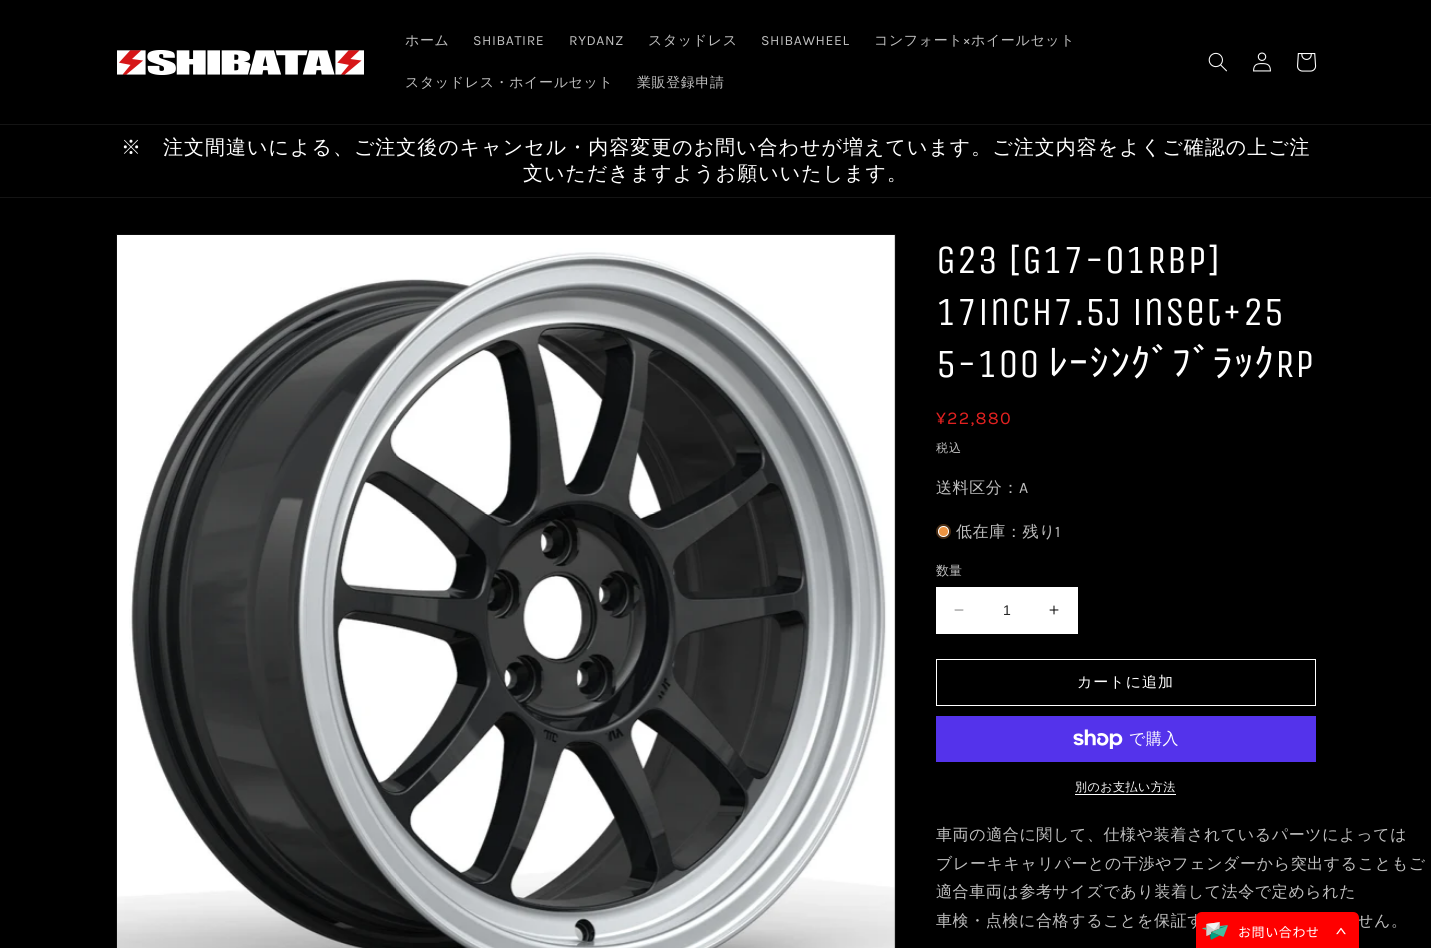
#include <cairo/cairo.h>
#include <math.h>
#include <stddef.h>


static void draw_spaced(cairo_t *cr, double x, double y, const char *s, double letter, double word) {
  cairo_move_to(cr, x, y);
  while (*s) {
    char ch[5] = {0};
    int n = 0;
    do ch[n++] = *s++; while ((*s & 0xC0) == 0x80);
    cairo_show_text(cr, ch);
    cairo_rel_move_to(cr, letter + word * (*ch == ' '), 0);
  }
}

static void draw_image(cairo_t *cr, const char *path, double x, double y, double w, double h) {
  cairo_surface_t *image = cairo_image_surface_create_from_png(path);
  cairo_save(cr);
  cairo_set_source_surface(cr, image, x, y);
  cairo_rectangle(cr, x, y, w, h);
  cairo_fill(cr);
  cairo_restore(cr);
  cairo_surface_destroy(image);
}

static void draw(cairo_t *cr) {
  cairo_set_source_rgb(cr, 0, 0, 0);
  cairo_paint(cr);
  cairo_set_source_rgb(cr, 20 / 255.0, 20 / 255.0, 20 / 255.0);
  cairo_rectangle(cr, 0, 124, 1431, 1);
  cairo_fill(cr);
  draw_image(cr, "images/1.png", 117, 50, 247, 25);
  draw_image(cr, "images/2.png", 1208, 52, 19, 20);
  draw_image(cr, "images/3.png", 1253, 52, 18, 20);
  draw_image(cr, "images/4.png", 1297, 53, 20, 19);
  cairo_rectangle(cr, 0, 197, 1431, 1);
  cairo_fill(cr);
  cairo_rectangle(cr, 116.5, 234.5, 779, 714);
  cairo_set_source_rgb(cr, 13 / 255.0, 13 / 255.0, 13 / 255.0);
  cairo_set_line_width(cr, 1);
  cairo_stroke(cr);
  draw_image(cr, "images/5.png", 117, 235, 778, 713);
  cairo_set_source_rgb(cr, 71 / 255.0, 44 / 255.0, 20 / 255.0);
  cairo_arc(cr, 943.5, 531.5, 7.5, 0, 2 * M_PI);
  cairo_fill(cr);
  cairo_set_source_rgb(cr, 238 / 255.0, 148 / 255.0, 65 / 255.0);
  cairo_arc(cr, 943.5, 531.5, 5, 0, 2 * M_PI);
  cairo_fill_preserve(cr);
  cairo_set_source_rgb(cr, 1, 1, 1);
  cairo_stroke(cr);
  cairo_rectangle(cr, 936, 587, 142, 47);
  cairo_fill(cr);
  draw_image(cr, "images/6.png", 954, 609, 10, 2);
  draw_image(cr, "images/7.png", 1049, 605, 10, 10);
  cairo_rectangle(cr, 936.5, 659.5, 379, 46);
  cairo_stroke(cr);
  cairo_set_source_rgb(cr, 84 / 255.0, 51 / 255.0, 235 / 255.0);
  cairo_rectangle(cr, 936, 716, 380, 46);
  cairo_fill(cr);
  draw_image(cr, "images/8.png", 1073, 729, 50, 20);
  cairo_set_source_rgb(cr, 1, 1, 1);
  cairo_rectangle(cr, 1075, 794, 101, 1);
  cairo_fill(cr);
  cairo_select_font_face(cr, "WenQuanYi Zen Hei Medium", CAIRO_FONT_SLANT_NORMAL, CAIRO_FONT_WEIGHT_NORMAL);
  cairo_set_font_size(cr, 14);
  cairo_set_source_rgb(cr, 191 / 255.0, 191 / 255.0, 191 / 255.0);
  draw_spaced(cr, 405, 45, "ホーム", 0.6, 0);
  cairo_select_font_face(cr, "Karla", CAIRO_FONT_SLANT_NORMAL, CAIRO_FONT_WEIGHT_NORMAL);
  draw_spaced(cr, 473, 45, "SHIBATIRE", 0.6, 0);
  draw_spaced(cr, 569, 45, "RYDANZ", 0.6, 0);
  cairo_select_font_face(cr, "WenQuanYi Zen Hei Medium", CAIRO_FONT_SLANT_NORMAL, CAIRO_FONT_WEIGHT_NORMAL);
  draw_spaced(cr, 648, 45, "スタッドレス", 0.6, 0);
  cairo_select_font_face(cr, "Karla", CAIRO_FONT_SLANT_NORMAL, CAIRO_FONT_WEIGHT_NORMAL);
  draw_spaced(cr, 761, 45, "SHIBAWHEEL", 0.6, 0);
  cairo_select_font_face(cr, "WenQuanYi Zen Hei Medium", CAIRO_FONT_SLANT_NORMAL, CAIRO_FONT_WEIGHT_NORMAL);
  draw_spaced(cr, 874, 45, "コンフォート", 0.6, 0);
  cairo_select_font_face(cr, "Karla", CAIRO_FONT_SLANT_NORMAL, CAIRO_FONT_WEIGHT_NORMAL);
  draw_spaced(cr, 963, 45, "×", 0.6, 0);
  cairo_select_font_face(cr, "WenQuanYi Zen Hei Medium", CAIRO_FONT_SLANT_NORMAL, CAIRO_FONT_WEIGHT_NORMAL);
  draw_spaced(cr, 971, 45, "ホイールセット", 0.6, 0);
  draw_spaced(cr, 405, 87, "スタッドレス・ホイールセット", 0.6, 0);
  draw_spaced(cr, 637, 87, "業販登録申請", 0.6, 0);
  cairo_set_font_size(cr, 20);
  cairo_set_source_rgb(cr, 1, 1, 1);
  draw_spaced(cr, 121, 154, "※　注文間違いによる、ご注文後のキャンセル・内容変更のお問い合わせが増えています。ご注文内容をよくご確認の上ご注", 1, 0);
  draw_spaced(cr, 523, 180, "文いただきますようお願いいたします。", 1, 0);
  cairo_select_font_face(cr, "Unica One", CAIRO_FONT_SLANT_NORMAL, CAIRO_FONT_WEIGHT_NORMAL);
  cairo_set_font_size(cr, 40);
  draw_spaced(cr, 936, 273, "G23 [G17-01RBP]", 0.6, 0);
  draw_spaced(cr, 936, 325, "17inch7.5J inset+25", 0.6, 0);
  draw_spaced(cr, 936, 377, "5-100", 0.6, 0);
  cairo_select_font_face(cr, "IPAPGothic", CAIRO_FONT_SLANT_NORMAL, CAIRO_FONT_WEIGHT_NORMAL);
  draw_spaced(cr, 1048, 377, "ﾚｰｼﾝｸﾞﾌﾞﾗｯｸ", 0.6, 0);
  cairo_select_font_face(cr, "Unica One", CAIRO_FONT_SLANT_NORMAL, CAIRO_FONT_WEIGHT_NORMAL);
  draw_spaced(cr, 1275, 377, "RP", 0.6, 0);
  cairo_select_font_face(cr, "Karla", CAIRO_FONT_SLANT_NORMAL, CAIRO_FONT_WEIGHT_NORMAL);
  cairo_set_font_size(cr, 18);
  cairo_set_source_rgb(cr, 226 / 255.0, 33 / 255.0, 32 / 255.0);
  draw_spaced(cr, 936, 424, "¥22,880", 1.25, 0);
  cairo_select_font_face(cr, "WenQuanYi Zen Hei Medium", CAIRO_FONT_SLANT_NORMAL, CAIRO_FONT_WEIGHT_NORMAL);
  cairo_set_font_size(cr, 12);
  cairo_set_source_rgb(cr, 191 / 255.0, 191 / 255.0, 191 / 255.0);
  draw_spaced(cr, 936, 452, "税込", 1, 0);
  cairo_set_font_size(cr, 16);
  draw_spaced(cr, 936, 493, "送料区分：", 0.6, 0);
  cairo_select_font_face(cr, "Karla", CAIRO_FONT_SLANT_NORMAL, CAIRO_FONT_WEIGHT_NORMAL);
  draw_spaced(cr, 1019, 493, "A", 0.6, 0);
  cairo_select_font_face(cr, "WenQuanYi Zen Hei Medium", CAIRO_FONT_SLANT_NORMAL, CAIRO_FONT_WEIGHT_NORMAL);
  draw_spaced(cr, 956, 537, "低在庫：残り", 0.6, 0);
  cairo_select_font_face(cr, "Karla", CAIRO_FONT_SLANT_NORMAL, CAIRO_FONT_WEIGHT_NORMAL);
  draw_spaced(cr, 1055, 537, "1", 0.6, 0);
  cairo_select_font_face(cr, "WenQuanYi Zen Hei Medium", CAIRO_FONT_SLANT_NORMAL, CAIRO_FONT_WEIGHT_NORMAL);
  cairo_set_font_size(cr, 13);
  cairo_move_to(cr, 936, 575);
  cairo_show_text(cr, "数量");
  cairo_select_font_face(cr, "Liberation Sans", CAIRO_FONT_SLANT_NORMAL, CAIRO_FONT_WEIGHT_NORMAL);
  cairo_set_font_size(cr, 14);
  cairo_set_source_rgb(cr, 38 / 255.0, 38 / 255.0, 38 / 255.0);
  cairo_move_to(cr, 1003, 615);
  cairo_show_text(cr, "1");
  cairo_select_font_face(cr, "WenQuanYi Zen Hei Medium", CAIRO_FONT_SLANT_NORMAL, CAIRO_FONT_WEIGHT_NORMAL);
  cairo_set_font_size(cr, 15);
  cairo_set_source_rgb(cr, 1, 1, 1);
  draw_spaced(cr, 1077, 687, "カートに追加", 1, 0);
  cairo_set_font_size(cr, 16);
  draw_spaced(cr, 1129, 744, "で購入", 0.6, 0);
  cairo_set_font_size(cr, 12);
  draw_spaced(cr, 1075, 791, "別のお支払い方法", 0.5, 0);
  cairo_set_font_size(cr, 16);
  cairo_set_source_rgb(cr, 191 / 255.0, 191 / 255.0, 191 / 255.0);
  draw_spaced(cr, 936, 840, "車両の適合に関して、仕様や装着されているパーツによっては", 0.6, 0);
  draw_spaced(cr, 936, 869, "ブレーキキャリパーとの干渉やフェンダーから突出することもご", 0.6, 0);
  draw_spaced(cr, 936, 897, "適合車両は参考サイズであり装着して法令で定められた", 0.6, 0);
  draw_spaced(cr, 936, 926, "車検・点検に合格することを保証す", 0.6, 0);
  draw_spaced(cr, 1357, 926, "せん。", 0.6, 0);
  cairo_set_source_rgb(cr, 1, 0, 0);
  cairo_new_path(cr);
  cairo_move_to(cr, 1202, 912);
  cairo_line_to(cr, 1353, 912);
  cairo_curve_to(cr, 1356.5, 912, 1359, 914.5, 1359, 918);
  cairo_line_to(cr, 1359, 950);
  cairo_line_to(cr, 1196, 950);
  cairo_line_to(cr, 1196, 918);
  cairo_curve_to(cr, 1196, 914.5, 1198.5, 912, 1202, 912);
  cairo_close_path(cr);
  cairo_fill(cr);
  draw_image(cr, "images/9.png", 1202, 922, 26, 18);
  cairo_select_font_face(cr, "Noto Sans JP", CAIRO_FONT_SLANT_NORMAL, CAIRO_FONT_WEIGHT_NORMAL);
  cairo_set_font_size(cr, 13);
  cairo_set_source_rgb(cr, 1, 1, 1);
  draw_spaced(cr, 1238, 937, "お問い合わせ", 0.6, 0);
  draw_image(cr, "images/10.png", 1336, 927, 10, 8);
}

int main(void) {
  cairo_surface_t *surface = cairo_image_surface_create(CAIRO_FORMAT_RGB24, 1431, 948);
  cairo_t *cr = cairo_create(surface);
  cairo_font_options_t *options = cairo_font_options_create();
  cairo_font_options_set_hint_metrics(options, CAIRO_HINT_METRICS_OFF);
  cairo_font_options_set_hint_style(options, CAIRO_HINT_STYLE_NONE);
  cairo_set_font_options(cr, options);
  cairo_set_miter_limit(cr, 4);
  draw(cr);
  cairo_surface_write_to_png(surface, "out.png");
  cairo_font_options_destroy(options);
  cairo_destroy(cr);
  cairo_surface_destroy(surface);
  return 0;
}
